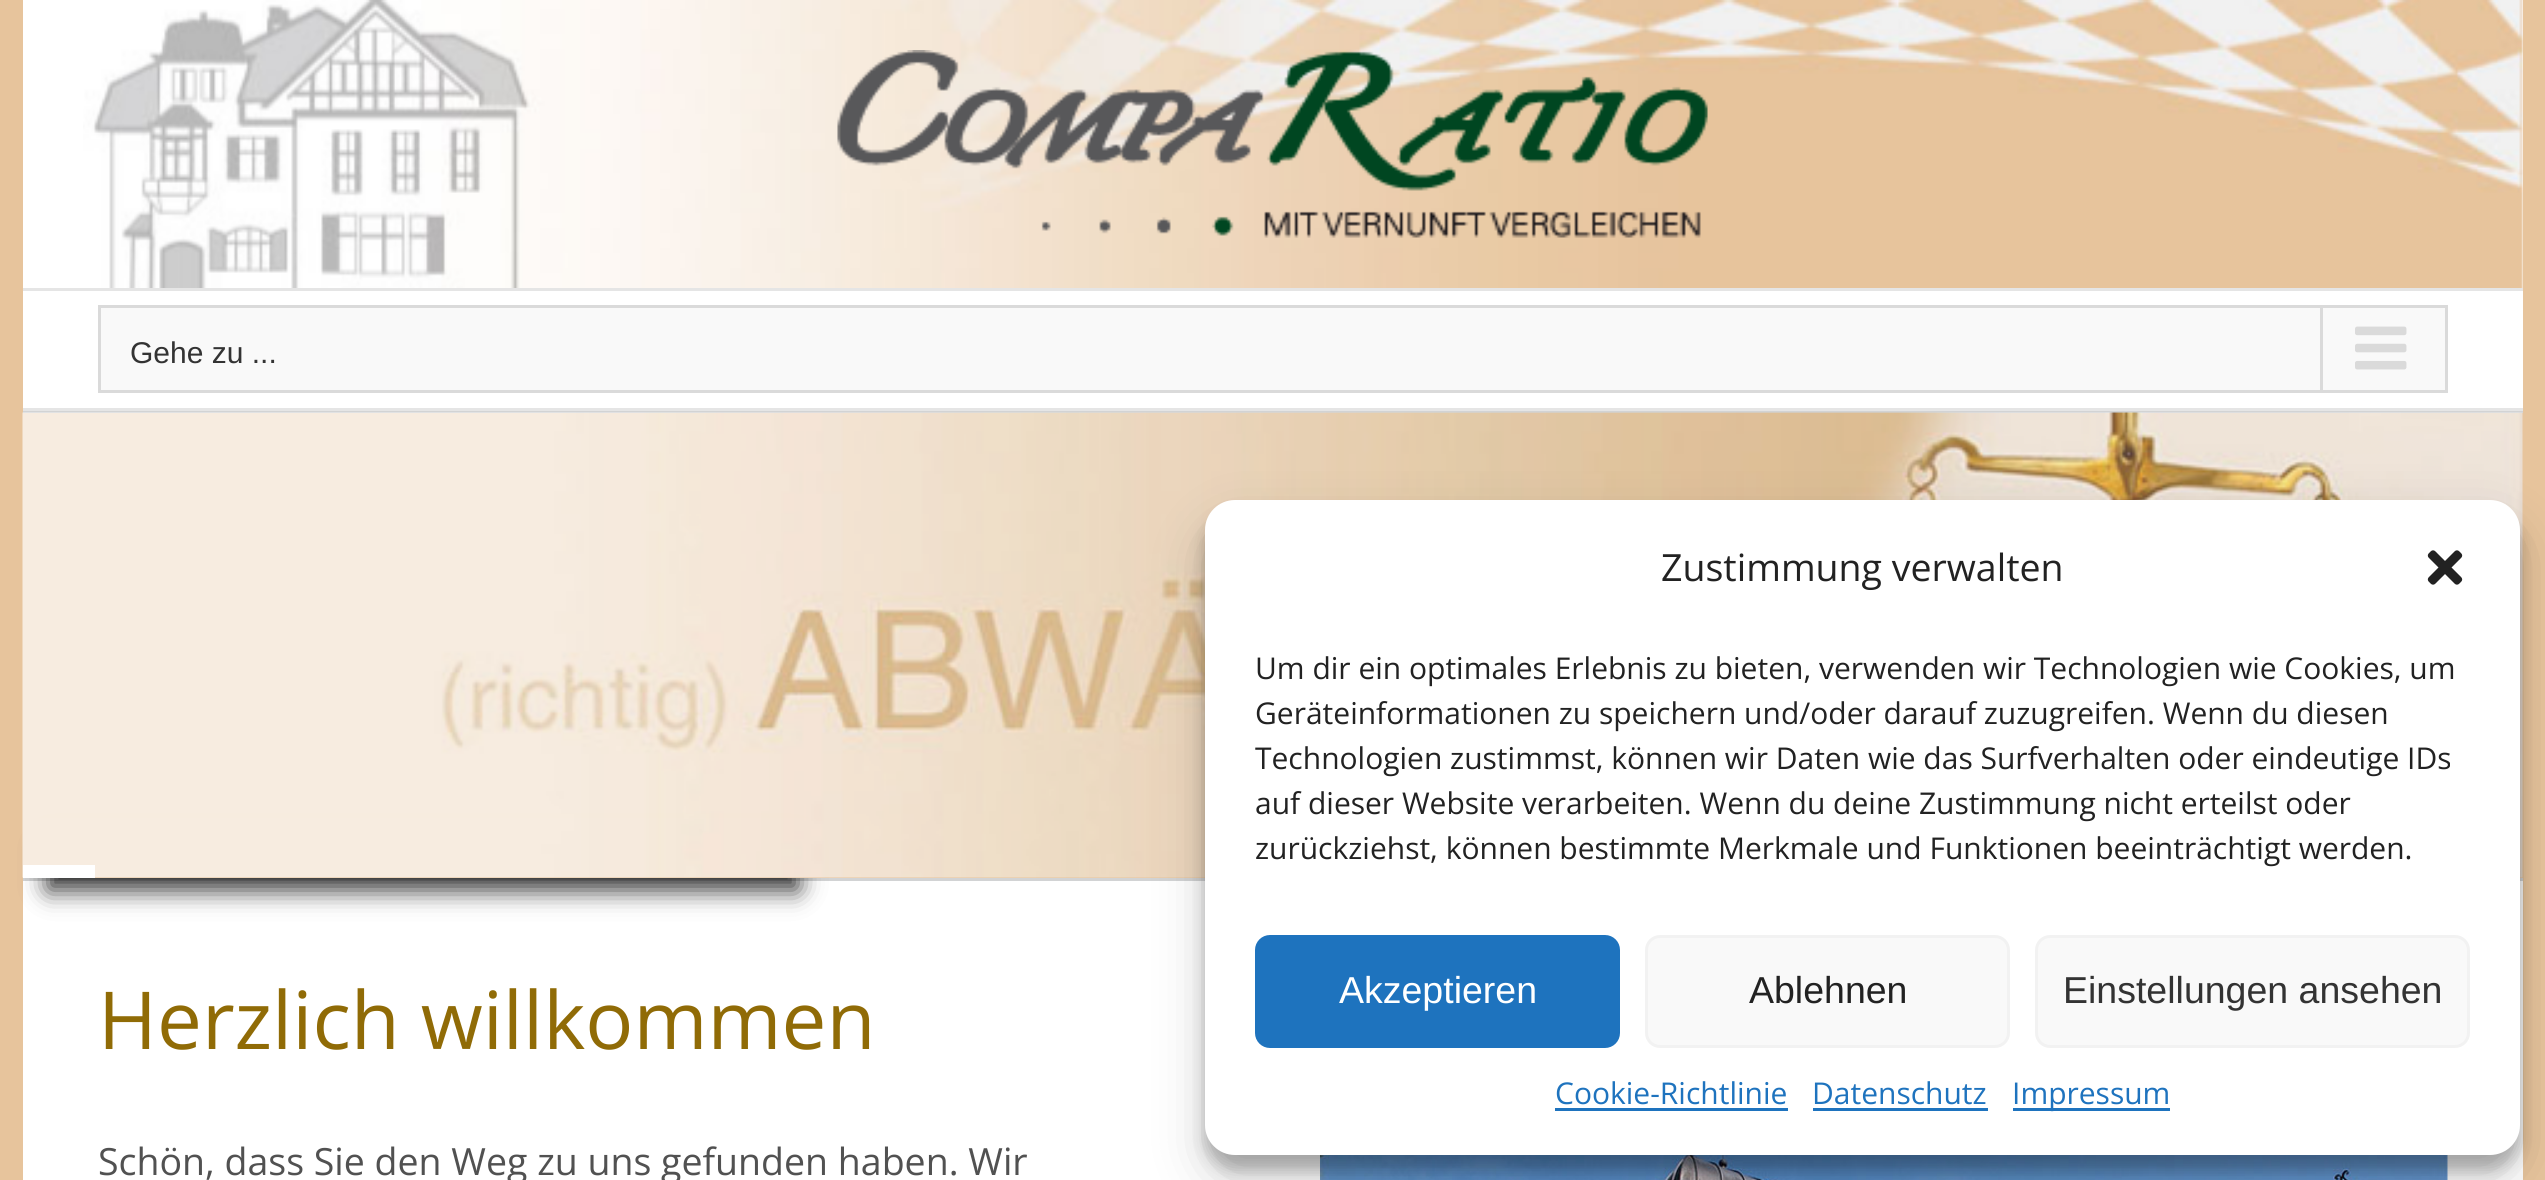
#include <cairo/cairo.h>
#include <math.h>
#include <stddef.h>


static void rounded_rect(cairo_t *cr, double x, double y, double w, double h, double r) {
  cairo_new_sub_path(cr);
  cairo_arc(cr, x + w - r, y + h - r, r, 0, M_PI / 2);
  cairo_arc(cr, x + r, y + h - r, r, M_PI / 2, M_PI);
  cairo_arc(cr, x + r, y + r, r, M_PI, 1.5 * M_PI);
  cairo_arc(cr, x + w - r, y + r, r, 1.5 * M_PI, 2 * M_PI);
  cairo_close_path(cr);
}

static void draw_shadow(cairo_t *cr, double x, double y, double w, double h, double r, double blur, double alpha) {
  cairo_push_group_with_content(cr, CAIRO_CONTENT_ALPHA);
  cairo_set_operator(cr, CAIRO_OPERATOR_SOURCE);
  for (int i = 15; i >= -15 && fmin(w, h) + blur * i / 3 > 0; i -= 2) {
    double e = blur * i / 6;
    cairo_set_source_rgba(cr, 0, 0, 0, alpha * erfc((i - 1) / 8.5) / 2);
    rounded_rect(cr, x - e, y - e, w + 2 * e, h + 2 * e, fmax(0, fmin(r + e + blur * .6, fmin(w, h) / 2 + e)));
    cairo_fill(cr);
  }
  cairo_pattern_t *soft = cairo_pop_group(cr);
  cairo_mask(cr, soft);
  cairo_pattern_destroy(soft);
}

static void draw_image(cairo_t *cr, const char *path, double x, double y, double w, double h) {
  cairo_surface_t *image = cairo_image_surface_create_from_png(path);
  cairo_save(cr);
  cairo_set_source_surface(cr, image, x, y);
  cairo_rectangle(cr, x, y, w, h);
  cairo_fill(cr);
  cairo_restore(cr);
  cairo_surface_destroy(image);
}

static void draw(cairo_t *cr) {
  cairo_set_source_rgb(cr, 231 / 255.0, 196 / 255.0, 156 / 255.0);
  cairo_paint(cr);
  cairo_set_source_rgb(cr, 1, 1, 1);
  cairo_rectangle(cr, 23, 0, 2500, 288);
  cairo_fill(cr);
  draw_image(cr, "images/1.png", 83, 0, 2440, 288);
  cairo_set_source_rgb(cr, 229 / 255.0, 229 / 255.0, 229 / 255.0);
  cairo_rectangle(cr, 23, 288, 2500, 3);
  cairo_fill(cr);
  draw_image(cr, "images/2.png", 837, 50, 871, 188);
  cairo_set_source_rgb(cr, 1, 1, 1);
  cairo_rectangle(cr, 23, 291, 2500, 117);
  cairo_fill(cr);
  cairo_set_source_rgb(cr, 229 / 255.0, 229 / 255.0, 229 / 255.0);
  cairo_rectangle(cr, 23, 408, 2500, 3);
  cairo_fill(cr);
  cairo_set_source_rgb(cr, 249 / 255.0, 249 / 255.0, 249 / 255.0);
  cairo_rectangle(cr, 99.5, 306.5, 2347, 85);
  cairo_fill_preserve(cr);
  cairo_set_source_rgb(cr, 218 / 255.0, 218 / 255.0, 218 / 255.0);
  cairo_set_line_width(cr, 3);
  cairo_stroke(cr);
  cairo_rectangle(cr, 2320, 308, 3, 82);
  cairo_fill(cr);
  draw_image(cr, "images/3.png", 2355, 326, 52, 44);
  cairo_set_source_rgb(cr, 210 / 255.0, 211 / 255.0, 212 / 255.0);
  cairo_rectangle(cr, 23, 411, 2500, 2);
  cairo_fill(cr);
  cairo_rectangle(cr, 23, 878, 2500, 3);
  cairo_fill(cr);
  cairo_set_source_rgb(cr, 1, 1, 1);
  cairo_rectangle(cr, 23, 881, 2500, 299);
  cairo_fill(cr);
  cairo_set_source_rgb(cr, 0, 0, 0);
  draw_shadow(cr, 48, 845, 750, 45, 0, 12.5, 0.8);
  cairo_set_source_rgb(cr, 231 / 255.0, 196 / 255.0, 156 / 255.0);
  cairo_rectangle(cr, 23, 818, 802, 60);
  cairo_fill(cr);
  draw_image(cr, "images/4.png", 22, 412, 2501, 466);
  cairo_set_source_rgb(cr, 1, 1, 1);
  cairo_rectangle(cr, 23, 865, 72, 13);
  cairo_fill(cr);
  draw_image(cr, "images/5.png", 1320, 1155, 1128, 25);
  cairo_set_source_rgb(cr, 0, 0, 0);
  draw_shadow(cr, 1205, 515, 1315, 655, 30, 7.5, 0.23);
  draw_shadow(cr, 1205, 525, 1315, 655, 30, 25, 0.19);
  cairo_set_source_rgb(cr, 1, 1, 1);
  rounded_rect(cr, 1205, 500, 1315, 655, 30);
  cairo_fill(cr);
  draw_image(cr, "images/6.png", 2427, 550, 36, 35);
  cairo_set_source_rgb(cr, 30 / 255.0, 115 / 255.0, 190 / 255.0);
  rounded_rect(cr, 1256.5, 936.5, 362, 110, 13.5);
  cairo_fill_preserve(cr);
  cairo_stroke(cr);
  cairo_set_source_rgb(cr, 249 / 255.0, 249 / 255.0, 249 / 255.0);
  rounded_rect(cr, 1646.5, 936.5, 362, 110, 13.5);
  cairo_fill_preserve(cr);
  cairo_set_source_rgb(cr, 242 / 255.0, 242 / 255.0, 242 / 255.0);
  cairo_stroke(cr);
  cairo_set_source_rgb(cr, 249 / 255.0, 249 / 255.0, 249 / 255.0);
  rounded_rect(cr, 2036.5, 936.5, 432, 110, 13.5);
  cairo_fill_preserve(cr);
  cairo_set_source_rgb(cr, 242 / 255.0, 242 / 255.0, 242 / 255.0);
  cairo_stroke(cr);
  cairo_set_source_rgb(cr, 30 / 255.0, 115 / 255.0, 190 / 255.0);
  cairo_rectangle(cr, 1555, 1108, 233, 3);
  cairo_fill(cr);
  cairo_rectangle(cr, 1813, 1108, 175, 3);
  cairo_fill(cr);
  cairo_rectangle(cr, 2013, 1108, 157, 3);
  cairo_fill(cr);
  cairo_select_font_face(cr, "Liberation Sans", CAIRO_FONT_SLANT_NORMAL, CAIRO_FONT_WEIGHT_NORMAL);
  cairo_set_font_size(cr, 30);
  cairo_set_source_rgb(cr, 51 / 255.0, 51 / 255.0, 51 / 255.0);
  cairo_move_to(cr, 130, 363);
  cairo_show_text(cr, "Gehe zu ...");
  cairo_select_font_face(cr, "Open Sans", CAIRO_FONT_SLANT_NORMAL, CAIRO_FONT_WEIGHT_NORMAL);
  cairo_set_font_size(cr, 80);
  cairo_set_source_rgb(cr, 144 / 255.0, 107 / 255.0, 6 / 255.0);
  cairo_move_to(cr, 98, 1049);
  cairo_show_text(cr, "Herzlich willkommen");
  cairo_set_font_size(cr, 37.5);
  cairo_set_source_rgb(cr, 81 / 255.0, 81 / 255.0, 81 / 255.0);
  cairo_move_to(cr, 98, 1175);
  cairo_show_text(cr, "Schön, dass Sie den Weg zu uns gefunden haben. Wir");
  cairo_set_source_rgb(cr, 34 / 255.0, 34 / 255.0, 34 / 255.0);
  cairo_move_to(cr, 1661, 581);
  cairo_show_text(cr, "Zustimmung verwalten");
  cairo_set_font_size(cr, 30);
  cairo_move_to(cr, 1255, 679);
  cairo_show_text(cr, "Um dir ein optimales Erlebnis zu bieten, verwenden wir Technologien wie Cookies, um");
  cairo_move_to(cr, 1255, 724);
  cairo_show_text(cr, "Geräteinformationen zu speichern und/oder darauf zuzugreifen. Wenn du diesen");
  cairo_move_to(cr, 1255, 769);
  cairo_show_text(cr, "Technologien zustimmst, können wir Daten wie das Surfverhalten oder eindeutige IDs");
  cairo_move_to(cr, 1255, 814);
  cairo_show_text(cr, "auf dieser Website verarbeiten. Wenn du deine Zustimmung nicht erteilst oder");
  cairo_move_to(cr, 1255, 859);
  cairo_show_text(cr, "zurückziehst, können bestimmte Merkmale und Funktionen beeinträchtigt werden.");
  cairo_select_font_face(cr, "Liberation Sans", CAIRO_FONT_SLANT_NORMAL, CAIRO_FONT_WEIGHT_NORMAL);
  cairo_set_font_size(cr, 37.5);
  cairo_set_source_rgb(cr, 1, 1, 1);
  cairo_move_to(cr, 1339, 1003);
  cairo_show_text(cr, "Akzeptieren");
  cairo_set_source_rgb(cr, 34 / 255.0, 34 / 255.0, 34 / 255.0);
  cairo_move_to(cr, 1749, 1003);
  cairo_show_text(cr, "Ablehnen");
  cairo_set_source_rgb(cr, 51 / 255.0, 51 / 255.0, 51 / 255.0);
  cairo_move_to(cr, 2063, 1003);
  cairo_show_text(cr, "Einstellungen ansehen");
  cairo_select_font_face(cr, "Open Sans", CAIRO_FONT_SLANT_NORMAL, CAIRO_FONT_WEIGHT_NORMAL);
  cairo_set_font_size(cr, 30);
  cairo_set_source_rgb(cr, 30 / 255.0, 115 / 255.0, 190 / 255.0);
  cairo_move_to(cr, 1555, 1104);
  cairo_show_text(cr, "Cookie-Richtlinie");
  cairo_move_to(cr, 1812, 1104);
  cairo_show_text(cr, "Datenschutz");
  cairo_move_to(cr, 2012, 1104);
  cairo_show_text(cr, "Impressum");
}

int main(void) {
  cairo_surface_t *surface = cairo_image_surface_create(CAIRO_FORMAT_RGB24, 2545, 1180);
  cairo_t *cr = cairo_create(surface);
  cairo_font_options_t *options = cairo_font_options_create();
  cairo_font_options_set_hint_metrics(options, CAIRO_HINT_METRICS_OFF);
  cairo_font_options_set_hint_style(options, CAIRO_HINT_STYLE_NONE);
  cairo_set_font_options(cr, options);
  cairo_set_miter_limit(cr, 4);
  draw(cr);
  cairo_surface_write_to_png(surface, "out.png");
  cairo_font_options_destroy(options);
  cairo_destroy(cr);
  cairo_surface_destroy(surface);
  return 0;
}
